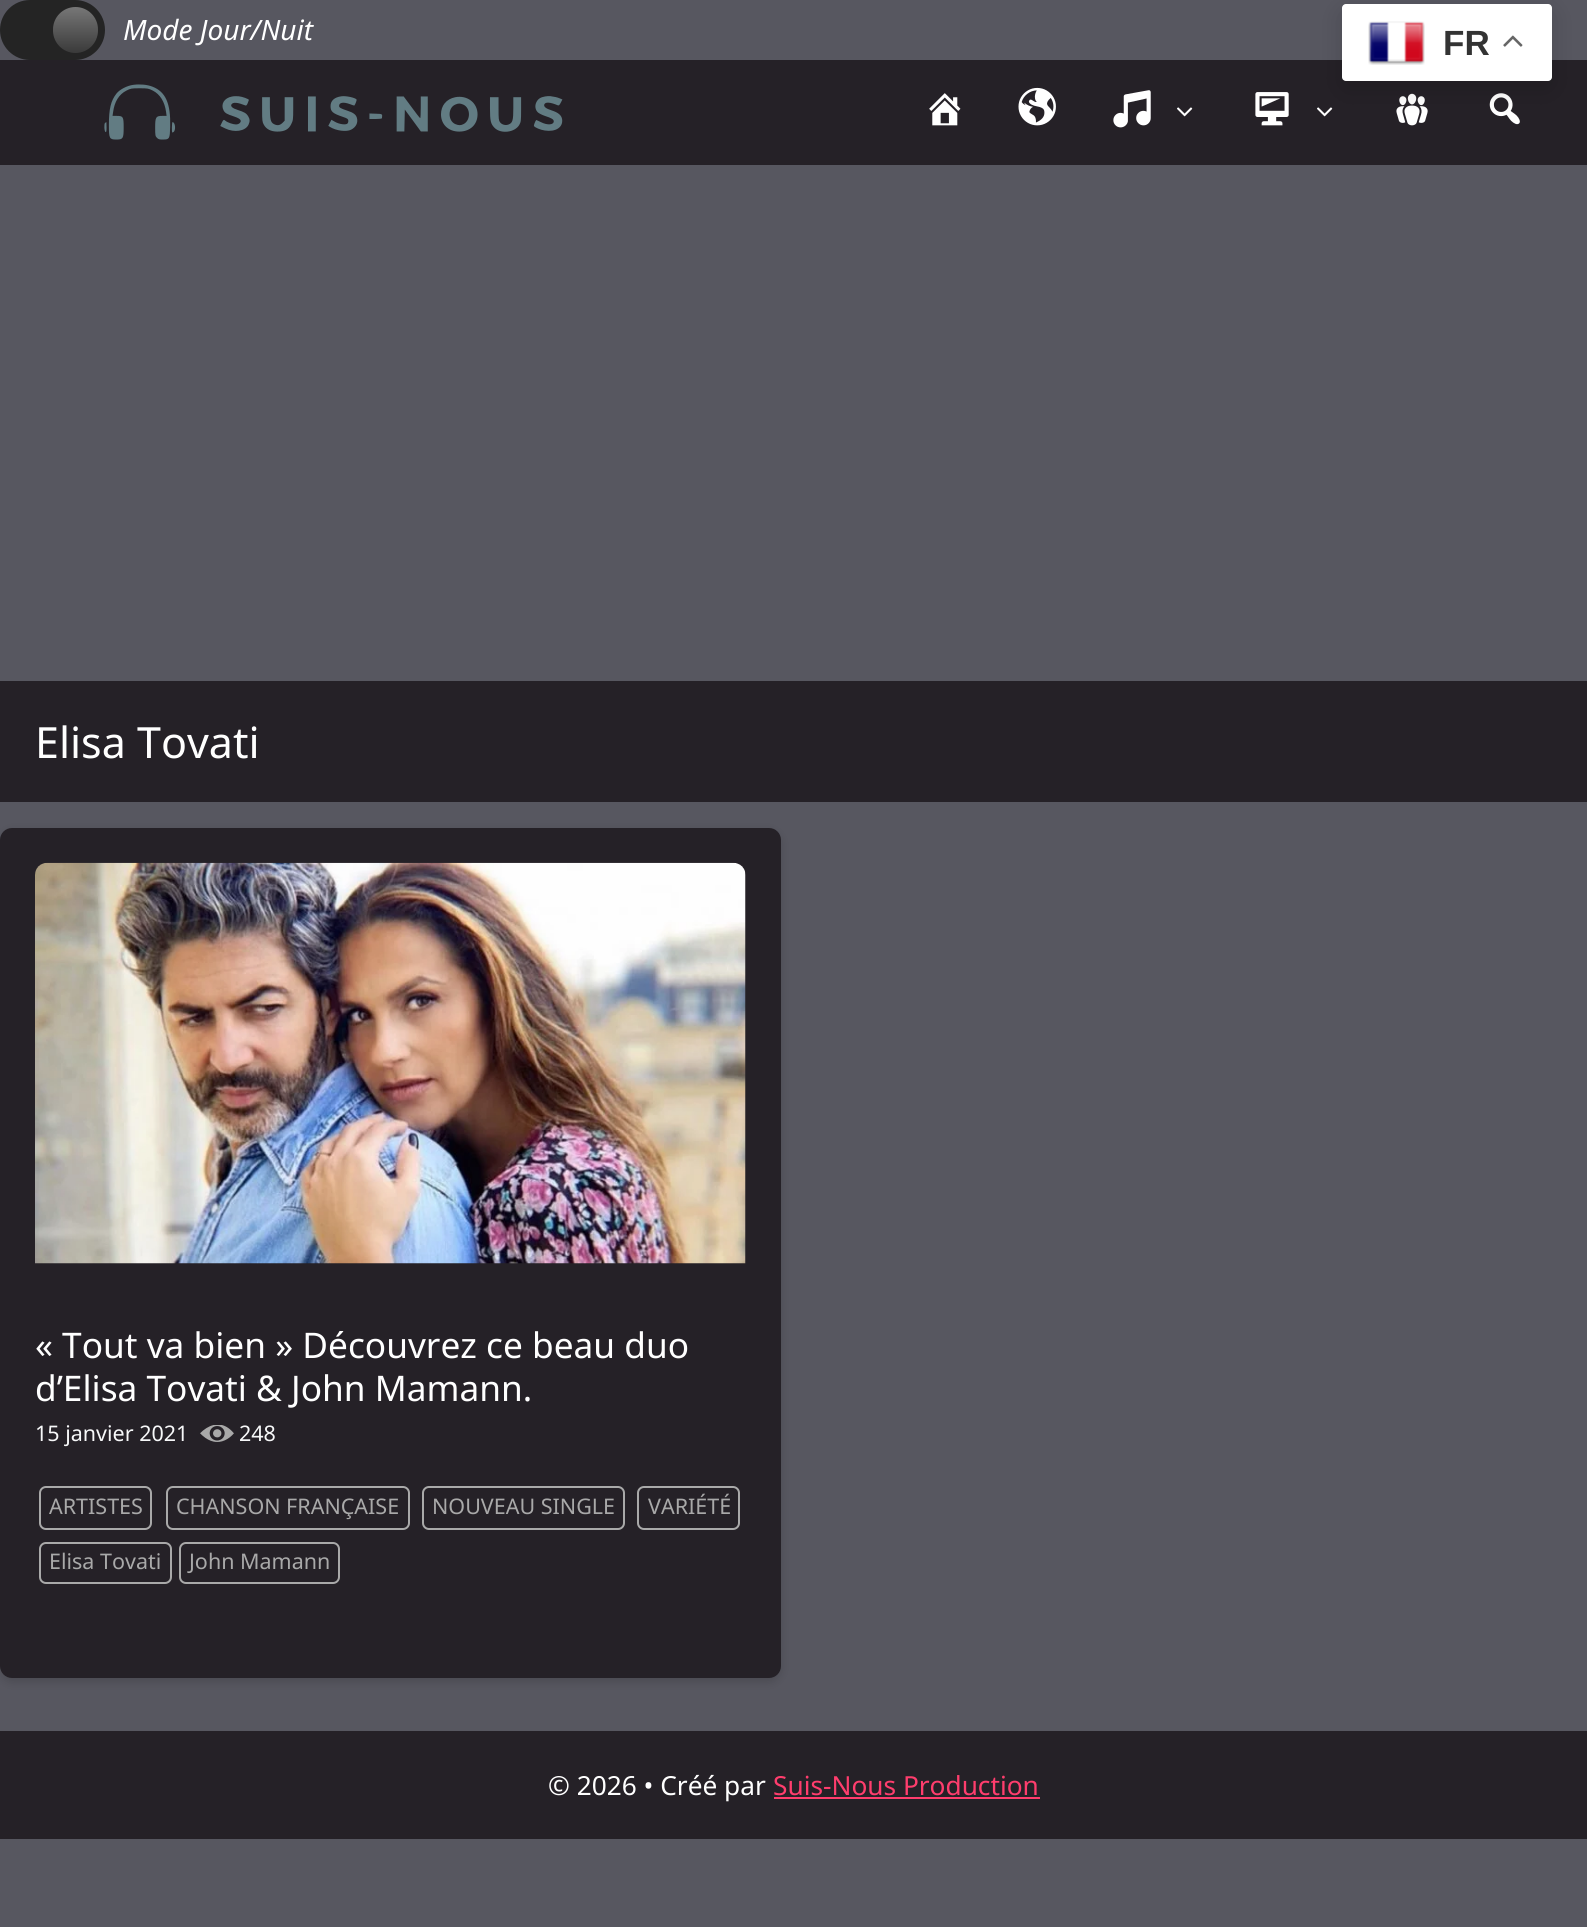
#include <cairo/cairo.h>
#include <math.h>
#include <stddef.h>


static void rounded_rect(cairo_t *cr, double x, double y, double w, double h, double r) {
  cairo_new_sub_path(cr);
  cairo_arc(cr, x + w - r, y + h - r, r, 0, M_PI / 2);
  cairo_arc(cr, x + r, y + h - r, r, M_PI / 2, M_PI);
  cairo_arc(cr, x + r, y + r, r, M_PI, 1.5 * M_PI);
  cairo_arc(cr, x + w - r, y + r, r, 1.5 * M_PI, 2 * M_PI);
  cairo_close_path(cr);
}

static void draw_shadow(cairo_t *cr, double x, double y, double w, double h, double r, double blur, double alpha) {
  cairo_push_group_with_content(cr, CAIRO_CONTENT_ALPHA);
  cairo_set_operator(cr, CAIRO_OPERATOR_SOURCE);
  for (int i = 15; i >= -15 && fmin(w, h) + blur * i / 3 > 0; i -= 2) {
    double e = blur * i / 6;
    cairo_set_source_rgba(cr, 0, 0, 0, alpha * erfc((i - 1) / 8.5) / 2);
    rounded_rect(cr, x - e, y - e, w + 2 * e, h + 2 * e, fmax(0, fmin(r + e + blur * .6, fmin(w, h) / 2 + e)));
    cairo_fill(cr);
  }
  cairo_pattern_t *soft = cairo_pop_group(cr);
  cairo_mask(cr, soft);
  cairo_pattern_destroy(soft);
}

static void draw_image(cairo_t *cr, const char *path, double x, double y, double w, double h) {
  cairo_surface_t *image = cairo_image_surface_create_from_png(path);
  cairo_save(cr);
  cairo_set_source_surface(cr, image, x, y);
  cairo_rectangle(cr, x, y, w, h);
  cairo_fill(cr);
  cairo_restore(cr);
  cairo_surface_destroy(image);
}

static void draw(cairo_t *cr) {
  cairo_pattern_t *gradient;
  cairo_set_source_rgb(cr, 87 / 255.0, 87 / 255.0, 96 / 255.0);
  cairo_paint(cr);
  cairo_set_source_rgb(cr, 36 / 255.0, 36 / 255.0, 36 / 255.0);
  rounded_rect(cr, 0, 0, 105, 60, 30);
  cairo_fill(cr);
  gradient = cairo_pattern_create_linear(75, 7, 75, 53);
  cairo_pattern_add_color_stop_rgba(gradient, 0, 119 / 255.0, 119 / 255.0, 119 / 255.0, 1);
  cairo_pattern_add_color_stop_rgba(gradient, 1, 58 / 255.0, 58 / 255.0, 58 / 255.0, 1);
  cairo_set_source(cr, gradient);
  cairo_pattern_destroy(gradient);
  rounded_rect(cr, 53, 7, 45, 46, 22.5);
  cairo_fill(cr);
  cairo_set_source_rgb(cr, 37 / 255.0, 33 / 255.0, 39 / 255.0);
  cairo_rectangle(cr, 0, 60, 1587, 105);
  cairo_fill(cr);
  draw_image(cr, "images/7.png", 1317, 107, 16, 10);
  draw_image(cr, "images/9.png", 1396, 93, 32, 33);
  draw_image(cr, "images/10.png", 1489, 93, 31, 32);
  cairo_set_source_rgb(cr, 0, 0, 0);
  draw_shadow(cr, 1342, 12, 210, 77, 4, 13, 0.15);
  cairo_set_source_rgb(cr, 1, 1, 1);
  rounded_rect(cr, 1342, 4, 210, 77, 4);
  cairo_fill(cr);
  draw_image(cr, "images/1.png", 1368, 21, 57, 44);
  draw_image(cr, "images/2.png", 1503, 35, 20, 12);
  draw_image(cr, "images/3.png", 104, 84, 459, 56);
  draw_image(cr, "images/4.png", 929, 93, 32, 33);
  draw_image(cr, "images/5.png", 1018, 87, 38, 39);
  draw_image(cr, "images/6.png", 1113, 90, 38, 38);
  draw_image(cr, "images/7.png", 1177, 107, 16, 10);
  draw_image(cr, "images/8.png", 1255, 92, 34, 34);
  cairo_set_source_rgb(cr, 37 / 255.0, 33 / 255.0, 39 / 255.0);
  cairo_rectangle(cr, 0, 681, 1587, 121);
  cairo_fill(cr);
  cairo_set_source_rgb(cr, 0, 0, 0);
  draw_shadow(cr, 0, 831, 781, 851, 12, 5, 0.15);
  cairo_set_source_rgb(cr, 37 / 255.0, 33 / 255.0, 39 / 255.0);
  rounded_rect(cr, 0, 828, 781, 850, 12);
  cairo_fill(cr);
  draw_image(cr, "images/11.png", 35, 862, 711, 402);
  draw_image(cr, "images/12.png", 200, 1425, 34, 17);
  rounded_rect(cr, 40, 1487, 111, 42, 6);
  cairo_set_source_rgb(cr, 169 / 255.0, 169 / 255.0, 169 / 255.0);
  cairo_stroke(cr);
  rounded_rect(cr, 167, 1487, 242, 42, 6);
  cairo_stroke(cr);
  rounded_rect(cr, 423, 1487, 201, 42, 6);
  cairo_stroke(cr);
  rounded_rect(cr, 638, 1487, 101, 42, 6);
  cairo_stroke(cr);
  rounded_rect(cr, 40, 1543, 131, 40, 6);
  cairo_stroke(cr);
  rounded_rect(cr, 180, 1543, 159, 40, 6);
  cairo_stroke(cr);
  cairo_set_source_rgb(cr, 37 / 255.0, 33 / 255.0, 39 / 255.0);
  cairo_rectangle(cr, 0, 1731, 1587, 108);
  cairo_fill(cr);
  cairo_set_source_rgb(cr, 1, 61 / 255.0, 109 / 255.0);
  cairo_rectangle(cr, 774, 1797, 266, 2);
  cairo_fill(cr);
  cairo_select_font_face(cr, "Noto Sans", CAIRO_FONT_SLANT_ITALIC, CAIRO_FONT_WEIGHT_NORMAL);
  cairo_set_font_size(cr, 28);
  cairo_set_source_rgb(cr, 1, 1, 1);
  cairo_move_to(cr, 123, 40);
  cairo_show_text(cr, "Mode Jour/Nuit");
  cairo_select_font_face(cr, "Liberation Sans", CAIRO_FONT_SLANT_NORMAL, CAIRO_FONT_WEIGHT_BOLD);
  cairo_set_font_size(cr, 35);
  cairo_set_source_rgb(cr, 51 / 255.0, 51 / 255.0, 51 / 255.0);
  cairo_move_to(cr, 1443, 55);
  cairo_show_text(cr, "FR");
  cairo_select_font_face(cr, "Noto Sans", CAIRO_FONT_SLANT_NORMAL, CAIRO_FONT_WEIGHT_NORMAL);
  cairo_set_font_size(cr, 43);
  cairo_set_source_rgb(cr, 1, 1, 1);
  cairo_move_to(cr, 35, 758);
  cairo_show_text(cr, "Elisa Tovati");
  cairo_set_font_size(cr, 35.25);
  cairo_move_to(cr, 35, 1358);
  cairo_show_text(cr, "« Tout va bien » Découvrez ce beau duo");
  cairo_move_to(cr, 35, 1401);
  cairo_show_text(cr, "d’Elisa Tovati & John Mamann.");
  cairo_set_font_size(cr, 21.5);
  cairo_set_source_rgb(cr, 247 / 255.0, 248 / 255.0, 249 / 255.0);
  cairo_move_to(cr, 35, 1441);
  cairo_show_text(cr, "15 janvier 2021");
  cairo_move_to(cr, 239, 1441);
  cairo_show_text(cr, "248");
  cairo_set_source_rgb(cr, 169 / 255.0, 169 / 255.0, 169 / 255.0);
  cairo_move_to(cr, 49, 1514);
  cairo_show_text(cr, "ARTISTES");
  cairo_move_to(cr, 176, 1514);
  cairo_show_text(cr, "CHANSON FRANÇAISE");
  cairo_move_to(cr, 432, 1514);
  cairo_show_text(cr, "NOUVEAU SINGLE");
  cairo_move_to(cr, 648, 1514);
  cairo_show_text(cr, "VARIÉTÉ");
  cairo_move_to(cr, 49, 1569);
  cairo_show_text(cr, "Elisa Tovati");
  cairo_move_to(cr, 189, 1569);
  cairo_show_text(cr, "John Mamann");
  cairo_set_font_size(cr, 26.25);
  cairo_set_source_rgb(cr, 1, 1, 1);
  cairo_move_to(cr, 548, 1795);
  cairo_show_text(cr, "© 2026 • Créé par");
  cairo_set_source_rgb(cr, 1, 61 / 255.0, 109 / 255.0);
  cairo_move_to(cr, 773, 1795);
  cairo_show_text(cr, "Suis-Nous Production");
}

int main(void) {
  cairo_surface_t *surface = cairo_image_surface_create(CAIRO_FORMAT_RGB24, 1587, 1927);
  cairo_t *cr = cairo_create(surface);
  cairo_font_options_t *options = cairo_font_options_create();
  cairo_font_options_set_hint_metrics(options, CAIRO_HINT_METRICS_OFF);
  cairo_font_options_set_hint_style(options, CAIRO_HINT_STYLE_NONE);
  cairo_set_font_options(cr, options);
  cairo_set_miter_limit(cr, 4);
  draw(cr);
  cairo_surface_write_to_png(surface, "out.png");
  cairo_font_options_destroy(options);
  cairo_destroy(cr);
  cairo_surface_destroy(surface);
  return 0;
}
